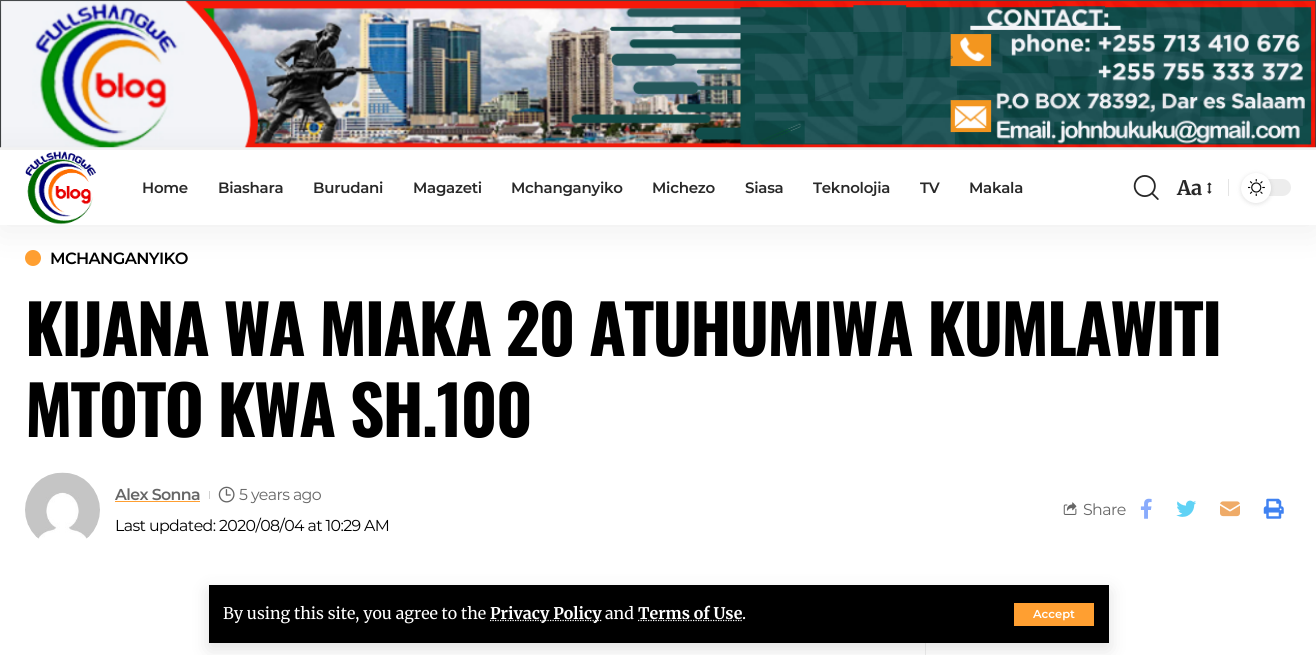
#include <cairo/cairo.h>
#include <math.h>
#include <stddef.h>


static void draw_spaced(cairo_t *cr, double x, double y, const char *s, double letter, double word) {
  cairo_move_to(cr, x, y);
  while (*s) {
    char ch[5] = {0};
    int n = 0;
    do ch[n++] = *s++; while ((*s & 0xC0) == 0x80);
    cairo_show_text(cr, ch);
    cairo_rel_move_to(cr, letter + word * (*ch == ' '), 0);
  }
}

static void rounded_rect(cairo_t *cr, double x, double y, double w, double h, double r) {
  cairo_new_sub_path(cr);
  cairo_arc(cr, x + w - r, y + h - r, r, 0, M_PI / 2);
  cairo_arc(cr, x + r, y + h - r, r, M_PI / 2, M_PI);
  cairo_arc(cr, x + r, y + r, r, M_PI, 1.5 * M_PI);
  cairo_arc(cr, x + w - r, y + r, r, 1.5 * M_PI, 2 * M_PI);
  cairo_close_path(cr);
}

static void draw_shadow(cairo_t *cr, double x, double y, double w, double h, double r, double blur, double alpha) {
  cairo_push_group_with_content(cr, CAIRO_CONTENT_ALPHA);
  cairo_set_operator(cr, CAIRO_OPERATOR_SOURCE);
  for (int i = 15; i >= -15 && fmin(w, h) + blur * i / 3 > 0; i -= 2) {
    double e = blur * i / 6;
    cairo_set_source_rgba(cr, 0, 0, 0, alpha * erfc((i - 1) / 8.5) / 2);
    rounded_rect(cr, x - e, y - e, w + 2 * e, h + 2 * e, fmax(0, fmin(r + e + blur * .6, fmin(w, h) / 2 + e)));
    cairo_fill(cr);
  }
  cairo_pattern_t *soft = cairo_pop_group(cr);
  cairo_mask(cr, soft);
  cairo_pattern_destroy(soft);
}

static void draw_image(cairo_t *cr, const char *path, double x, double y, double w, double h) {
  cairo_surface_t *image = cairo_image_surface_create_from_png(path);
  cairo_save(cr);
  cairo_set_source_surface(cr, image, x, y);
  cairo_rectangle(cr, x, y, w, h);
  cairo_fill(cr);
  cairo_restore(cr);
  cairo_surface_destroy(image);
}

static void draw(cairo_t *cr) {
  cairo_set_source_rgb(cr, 1, 1, 1);
  cairo_paint(cr);
  cairo_set_source_rgb(cr, 247 / 255.0, 247 / 255.0, 247 / 255.0);
  cairo_rectangle(cr, 0, 147, 1316, 3);
  cairo_fill(cr);
  draw_image(cr, "images/1.png", 0, 0, 1316, 148);
  cairo_set_source_rgb(cr, 1, 159 / 255.0, 49 / 255.0);
  cairo_arc(cr, 33, 258, 8, 0, 2 * M_PI);
  cairo_fill(cr);
  cairo_save(cr);
  cairo_set_fill_rule(cr, CAIRO_FILL_RULE_EVEN_ODD);
  cairo_new_path(cr);
  cairo_move_to(cr, 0, 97);
  cairo_line_to(cr, 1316, 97);
  cairo_line_to(cr, 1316, 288);
  cairo_line_to(cr, 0, 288);
  cairo_close_path(cr);
  cairo_move_to(cr, 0, 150);
  cairo_line_to(cr, 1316, 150);
  cairo_line_to(cr, 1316, 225);
  cairo_line_to(cr, 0, 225);
  cairo_close_path(cr);
  cairo_clip(cr);
  cairo_set_source_rgb(cr, 0, 0, 0);
  draw_shadow(cr, 0, 155, 1316, 75, 0, 19, 0.07);
  cairo_restore(cr);
  draw_image(cr, "images/2.png", 25, 151, 71, 74);
  draw_image(cr, "images/3.png", 1133, 175, 26, 25);
  draw_image(cr, "images/4.png", 1207, 182, 5, 12);
  cairo_set_source_rgb(cr, 228 / 255.0, 228 / 255.0, 228 / 255.0);
  cairo_rectangle(cr, 1228, 179, 1, 17);
  cairo_fill(cr);
  cairo_set_source_rgb(cr, 237 / 255.0, 237 / 255.0, 237 / 255.0);
  rounded_rect(cr, 1241, 179, 50, 17, 8.5);
  cairo_fill(cr);
  cairo_set_source_rgb(cr, 0, 0, 0);
  draw_shadow(cr, 1241, 174, 30, 30, 15, 2.5, 0.12);
  cairo_set_source_rgb(cr, 1, 1, 1);
  cairo_arc(cr, 1256, 188, 15, 0, 2 * M_PI);
  cairo_fill(cr);
  draw_image(cr, "images/5.png", 1248, 179, 17, 17);
  cairo_set_source_rgb(cr, 237 / 255.0, 237 / 255.0, 237 / 255.0);
  cairo_rectangle(cr, 925, 643, 1, 12);
  cairo_fill(cr);
  cairo_set_source_rgb(cr, 0, 0, 0);
  draw_shadow(cr, 209, 591, 900, 58, 0, 9.5, 0.12);
  cairo_set_source_rgb(cr, 0, 0, 0);
  cairo_rectangle(cr, 209, 585, 900, 58);
  cairo_fill(cr);
  cairo_new_path(cr);
  cairo_move_to(cr, 490, 620.5);
  cairo_line_to(cr, 601.5, 620.5);
  cairo_set_source_rgb(cr, 1, 1, 1);
  cairo_set_line_width(cr, 1.2);
  cairo_set_dash(cr, (double[]){1.25, 1.25}, 2, 0);
  cairo_stroke(cr);
  cairo_new_path(cr);
  cairo_move_to(cr, 638, 620.5);
  cairo_line_to(cr, 742.5, 620.5);
  cairo_stroke(cr);
  cairo_set_source_rgb(cr, 1, 159 / 255.0, 49 / 255.0);
  cairo_rectangle(cr, 1014, 603, 80, 23);
  cairo_fill(cr);
  draw_image(cr, "images/6.png", 25, 472, 75, 67);
  cairo_rectangle(cr, 115, 501, 85, 1);
  cairo_fill(cr);
  cairo_set_source_rgb(cr, 209 / 255.0, 209 / 255.0, 209 / 255.0);
  cairo_rectangle(cr, 209, 491, 1, 8);
  cairo_fill(cr);
  draw_image(cr, "images/7.png", 218, 486, 17, 17);
  draw_image(cr, "images/8.png", 1063, 502, 14, 13);
  draw_image(cr, "images/9.png", 1140, 498, 12, 21);
  draw_image(cr, "images/10.png", 1176, 500, 21, 17);
  draw_image(cr, "images/11.png", 1220, 501, 20, 16);
  draw_image(cr, "images/12.png", 1263, 498, 21, 21);
  cairo_select_font_face(cr, "Montserrat SemiBold", CAIRO_FONT_SLANT_NORMAL, CAIRO_FONT_WEIGHT_NORMAL);
  cairo_set_font_size(cr, 15);
  cairo_set_source_rgb(cr, 40 / 255.0, 40 / 255.0, 40 / 255.0);
  draw_spaced(cr, 142, 193, "Home", -0.25, 0);
  draw_spaced(cr, 218, 193, "Biashara", -0.25, 0);
  draw_spaced(cr, 313, 193, "Burudani", -0.25, 0);
  draw_spaced(cr, 413, 193, "Magazeti", -0.25, 0);
  draw_spaced(cr, 511, 193, "Mchanganyiko", -0.25, 0);
  draw_spaced(cr, 652, 193, "Michezo", -0.25, 0);
  draw_spaced(cr, 745, 193, "Siasa", -0.25, 0);
  draw_spaced(cr, 813, 193, "Teknolojia", -0.25, 0);
  draw_spaced(cr, 920, 193, "TV", -0.25, 0);
  draw_spaced(cr, 969, 193, "Makala", -0.25, 0);
  cairo_select_font_face(cr, "Merriweather", CAIRO_FONT_SLANT_NORMAL, CAIRO_FONT_WEIGHT_BOLD);
  cairo_set_font_size(cr, 20);
  cairo_move_to(cr, 1177, 195);
  cairo_show_text(cr, "Aa");
  cairo_select_font_face(cr, "Merriweather", CAIRO_FONT_SLANT_NORMAL, CAIRO_FONT_WEIGHT_NORMAL);
  cairo_set_font_size(cr, 16);
  cairo_set_source_rgb(cr, 1, 1, 1);
  cairo_move_to(cr, 223, 619);
  cairo_show_text(cr, "By using this site, you agree to the");
  cairo_select_font_face(cr, "Merriweather", CAIRO_FONT_SLANT_NORMAL, CAIRO_FONT_WEIGHT_BOLD);
  cairo_move_to(cr, 490, 619);
  cairo_show_text(cr, "Privacy Policy");
  cairo_select_font_face(cr, "Merriweather", CAIRO_FONT_SLANT_NORMAL, CAIRO_FONT_WEIGHT_NORMAL);
  cairo_move_to(cr, 605, 619);
  cairo_show_text(cr, "and");
  cairo_select_font_face(cr, "Merriweather", CAIRO_FONT_SLANT_NORMAL, CAIRO_FONT_WEIGHT_BOLD);
  cairo_move_to(cr, 638, 619);
  cairo_show_text(cr, "Terms of Use");
  cairo_select_font_face(cr, "Merriweather", CAIRO_FONT_SLANT_NORMAL, CAIRO_FONT_WEIGHT_NORMAL);
  cairo_move_to(cr, 742, 619);
  cairo_show_text(cr, ".");
  cairo_select_font_face(cr, "Montserrat SemiBold", CAIRO_FONT_SLANT_NORMAL, CAIRO_FONT_WEIGHT_NORMAL);
  cairo_set_font_size(cr, 11.5);
  cairo_move_to(cr, 1033, 618);
  cairo_show_text(cr, "Accept");
  cairo_set_font_size(cr, 16.25);
  cairo_set_source_rgb(cr, 0, 0, 0);
  draw_spaced(cr, 50, 264, "MCHANGANYIKO", -0.6, 0);
  cairo_select_font_face(cr, "Oswald", CAIRO_FONT_SLANT_NORMAL, CAIRO_FONT_WEIGHT_BOLD);
  cairo_set_font_size(cr, 67.5);
  draw_spaced(cr, 25, 356, "KIJANA WA MIAKA 20 ATUHUMIWA KUMLAWITI", -1.9, 0);
  draw_spaced(cr, 25, 437, "MTOTO KWA SH.100", -1.9, 0);
  cairo_select_font_face(cr, "Montserrat SemiBold", CAIRO_FONT_SLANT_NORMAL, CAIRO_FONT_WEIGHT_NORMAL);
  cairo_set_font_size(cr, 15.8);
  cairo_set_source_rgb(cr, 102 / 255.0, 102 / 255.0, 102 / 255.0);
  draw_spaced(cr, 115, 500, "Alex Sonna", -0.6, 0);
  cairo_select_font_face(cr, "Montserrat", CAIRO_FONT_SLANT_NORMAL, CAIRO_FONT_WEIGHT_NORMAL);
  draw_spaced(cr, 239, 500, "5 years ago", -0.6, 0);
  cairo_set_source_rgb(cr, 0, 0, 0);
  draw_spaced(cr, 115, 531, "Last updated: 2020/08/04 at 10:29 AM", -0.6, 0);
  cairo_set_source_rgb(cr, 102 / 255.0, 102 / 255.0, 102 / 255.0);
  draw_spaced(cr, 1083, 515, "Share", -0.6, 0);
}

int main(void) {
  cairo_surface_t *surface = cairo_image_surface_create(CAIRO_FORMAT_RGB24, 1316, 655);
  cairo_t *cr = cairo_create(surface);
  cairo_font_options_t *options = cairo_font_options_create();
  cairo_font_options_set_hint_metrics(options, CAIRO_HINT_METRICS_OFF);
  cairo_font_options_set_hint_style(options, CAIRO_HINT_STYLE_NONE);
  cairo_set_font_options(cr, options);
  cairo_set_miter_limit(cr, 4);
  draw(cr);
  cairo_surface_write_to_png(surface, "out.png");
  cairo_font_options_destroy(options);
  cairo_destroy(cr);
  cairo_surface_destroy(surface);
  return 0;
}
